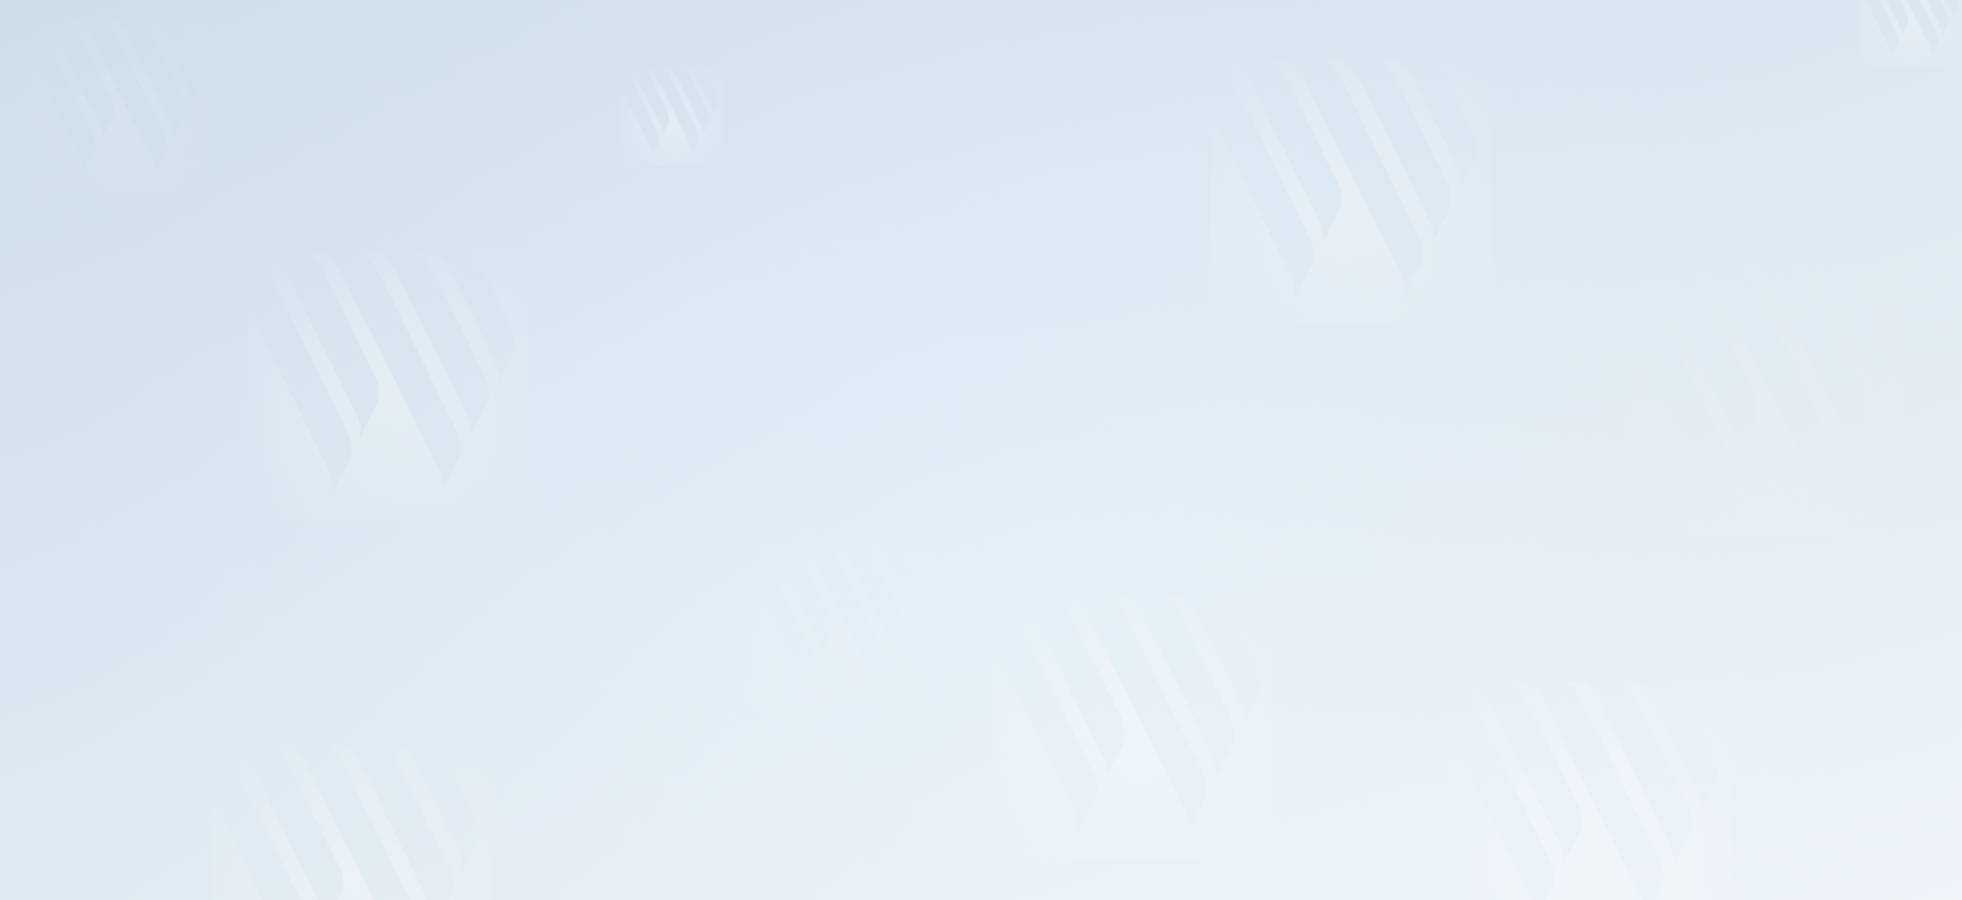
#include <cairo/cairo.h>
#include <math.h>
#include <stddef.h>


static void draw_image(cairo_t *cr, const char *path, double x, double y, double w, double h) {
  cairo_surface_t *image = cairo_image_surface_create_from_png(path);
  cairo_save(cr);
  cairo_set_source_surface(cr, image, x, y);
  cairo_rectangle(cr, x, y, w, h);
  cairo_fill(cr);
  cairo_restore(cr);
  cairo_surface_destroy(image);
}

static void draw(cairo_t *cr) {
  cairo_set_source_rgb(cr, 1, 1, 1);
  cairo_paint(cr);
  draw_image(cr, "images/1.png", 0, 0, 1962, 900);
}

int main(void) {
  cairo_surface_t *surface = cairo_image_surface_create(CAIRO_FORMAT_RGB24, 1962, 900);
  cairo_t *cr = cairo_create(surface);
  cairo_font_options_t *options = cairo_font_options_create();
  cairo_font_options_set_hint_metrics(options, CAIRO_HINT_METRICS_OFF);
  cairo_font_options_set_hint_style(options, CAIRO_HINT_STYLE_NONE);
  cairo_set_font_options(cr, options);
  cairo_set_miter_limit(cr, 4);
  draw(cr);
  cairo_surface_write_to_png(surface, "out.png");
  cairo_font_options_destroy(options);
  cairo_destroy(cr);
  cairo_surface_destroy(surface);
  return 0;
}
